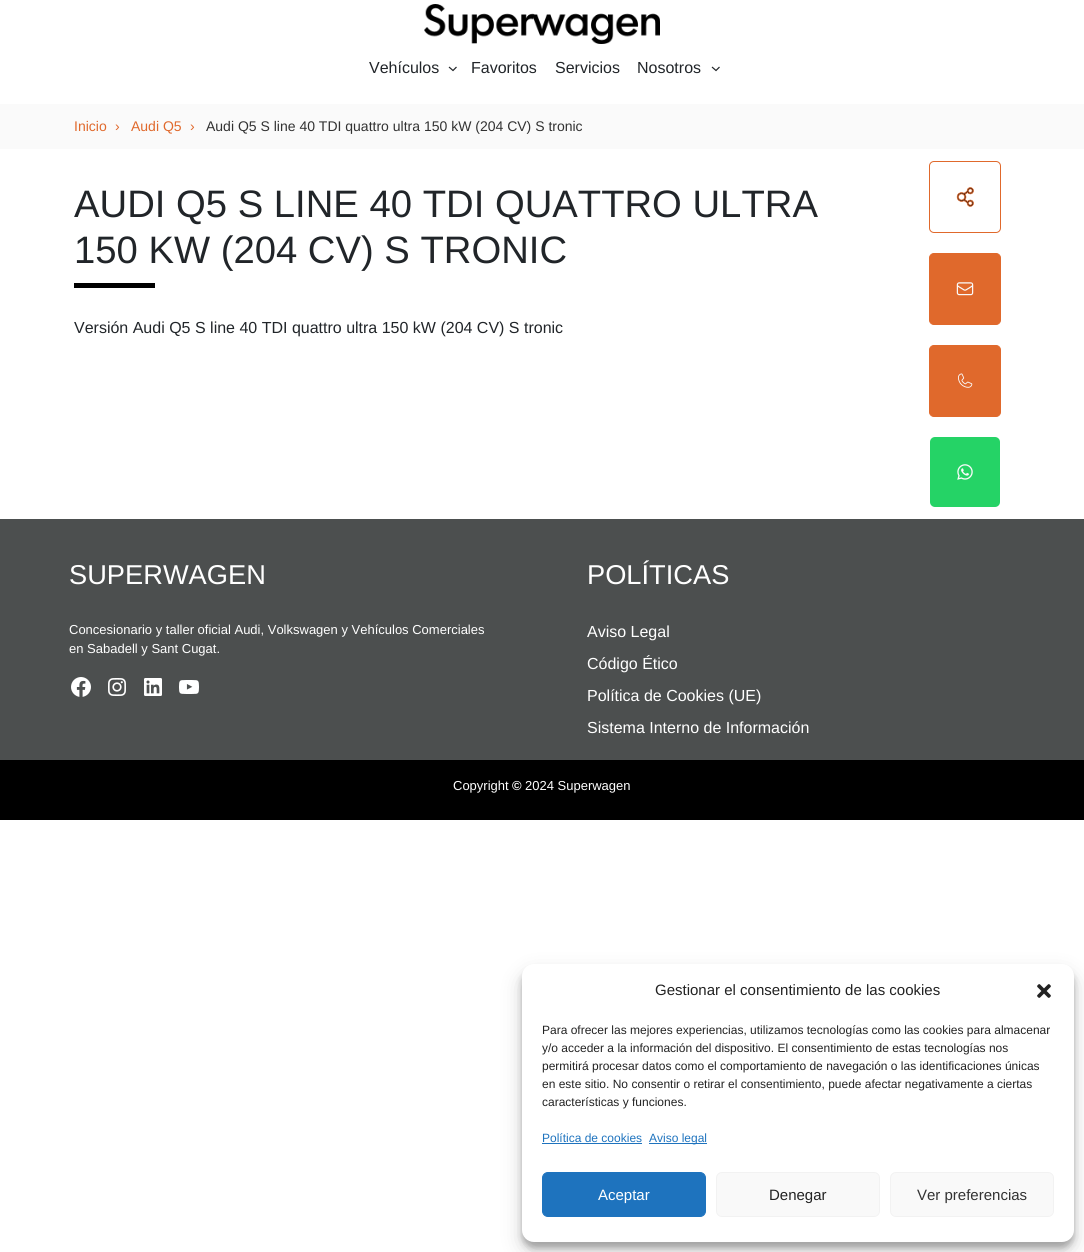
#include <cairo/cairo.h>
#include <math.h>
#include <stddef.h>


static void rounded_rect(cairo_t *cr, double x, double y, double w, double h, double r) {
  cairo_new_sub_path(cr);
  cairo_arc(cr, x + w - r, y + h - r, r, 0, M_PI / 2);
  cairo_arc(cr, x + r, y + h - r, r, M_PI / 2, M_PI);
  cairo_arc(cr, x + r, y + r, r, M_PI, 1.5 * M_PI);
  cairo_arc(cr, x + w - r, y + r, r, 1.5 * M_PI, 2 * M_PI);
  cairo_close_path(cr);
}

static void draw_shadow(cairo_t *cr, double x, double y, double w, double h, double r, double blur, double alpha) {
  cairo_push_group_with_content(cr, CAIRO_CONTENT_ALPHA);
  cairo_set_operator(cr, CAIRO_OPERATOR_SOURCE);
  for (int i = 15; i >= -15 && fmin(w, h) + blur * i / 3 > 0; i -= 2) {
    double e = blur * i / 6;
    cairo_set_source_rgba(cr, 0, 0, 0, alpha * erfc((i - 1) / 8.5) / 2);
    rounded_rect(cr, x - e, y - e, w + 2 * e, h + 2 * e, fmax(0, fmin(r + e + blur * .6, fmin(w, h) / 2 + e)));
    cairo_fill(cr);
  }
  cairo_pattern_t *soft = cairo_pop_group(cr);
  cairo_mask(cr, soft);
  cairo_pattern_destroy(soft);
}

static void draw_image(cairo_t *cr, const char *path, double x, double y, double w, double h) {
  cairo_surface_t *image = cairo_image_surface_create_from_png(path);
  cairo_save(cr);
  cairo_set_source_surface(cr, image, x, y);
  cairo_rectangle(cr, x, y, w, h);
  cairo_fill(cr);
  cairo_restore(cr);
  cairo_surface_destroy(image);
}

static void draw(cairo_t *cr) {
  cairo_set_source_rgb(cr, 1, 1, 1);
  cairo_paint(cr);
  draw_image(cr, "images/1.png", 424, 4, 236, 40);
  cairo_new_path(cr);
  cairo_move_to(cr, 449, 67);
  cairo_line_to(cr, 453, 70.5);
  cairo_line_to(cr, 456.5, 67);
  cairo_set_source_rgb(cr, 33 / 255.0, 37 / 255.0, 41 / 255.0);
  cairo_set_line_width(cr, 1.2);
  cairo_stroke(cr);
  cairo_new_path(cr);
  cairo_move_to(cr, 712, 67);
  cairo_line_to(cr, 716, 70.5);
  cairo_line_to(cr, 719.5, 67);
  cairo_stroke(cr);
  cairo_set_source_rgb(cr, 250 / 255.0, 250 / 255.0, 250 / 255.0);
  cairo_rectangle(cr, 0, 104, 1084, 45);
  cairo_fill(cr);
  cairo_set_source_rgb(cr, 0, 0, 0);
  cairo_rectangle(cr, 74, 283, 81, 5);
  cairo_fill(cr);
  rounded_rect(cr, 929.5, 161.5, 71, 71, 4.5);
  cairo_set_source_rgb(cr, 224 / 255.0, 105 / 255.0, 44 / 255.0);
  cairo_set_line_width(cr, 1);
  cairo_stroke(cr);
  draw_image(cr, "images/2.png", 956, 187, 18, 20);
  rounded_rect(cr, 929.5, 253.5, 71, 71, 4.5);
  cairo_fill_preserve(cr);
  cairo_stroke(cr);
  draw_image(cr, "images/3.png", 956, 282, 18, 14);
  rounded_rect(cr, 929.5, 345.5, 71, 71, 4.5);
  cairo_fill_preserve(cr);
  cairo_stroke(cr);
  draw_image(cr, "images/4.png", 958, 373, 15, 15);
  cairo_set_source_rgb(cr, 37 / 255.0, 211 / 255.0, 102 / 255.0);
  rounded_rect(cr, 930, 437, 70, 70, 5);
  cairo_fill(cr);
  draw_image(cr, "images/5.png", 957, 464, 16, 16);
  cairo_set_source_rgb(cr, 76 / 255.0, 79 / 255.0, 79 / 255.0);
  cairo_rectangle(cr, 0, 519, 1084, 241);
  cairo_fill(cr);
  draw_image(cr, "images/6.png", 71, 677, 20, 20);
  draw_image(cr, "images/7.png", 108, 678, 18, 18);
  draw_image(cr, "images/8.png", 144, 678, 18, 18);
  draw_image(cr, "images/9.png", 179, 680, 20, 14);
  cairo_set_source_rgb(cr, 0, 0, 0);
  cairo_rectangle(cr, 0, 760, 1084, 60);
  cairo_fill(cr);
  cairo_set_source_rgb(cr, 0, 0, 0);
  draw_shadow(cr, 522, 970, 552, 278, 12, 3, 0.23);
  draw_shadow(cr, 522, 974, 552, 278, 12, 10, 0.19);
  cairo_set_source_rgb(cr, 1, 1, 1);
  rounded_rect(cr, 522, 964, 552, 278, 12);
  cairo_fill(cr);
  draw_image(cr, "images/10.png", 1037, 984, 14, 14);
  cairo_set_source_rgb(cr, 30 / 255.0, 115 / 255.0, 190 / 255.0);
  cairo_rectangle(cr, 542, 1143, 100, 1);
  cairo_fill(cr);
  cairo_rectangle(cr, 649, 1143, 58, 1);
  cairo_fill(cr);
  rounded_rect(cr, 542.5, 1172.5, 163, 44, 5.5);
  cairo_fill_preserve(cr);
  cairo_stroke(cr);
  cairo_set_source_rgb(cr, 249 / 255.0, 249 / 255.0, 249 / 255.0);
  rounded_rect(cr, 716.5, 1172.5, 163, 44, 5.5);
  cairo_fill_preserve(cr);
  cairo_set_source_rgb(cr, 242 / 255.0, 242 / 255.0, 242 / 255.0);
  cairo_stroke(cr);
  cairo_set_source_rgb(cr, 249 / 255.0, 249 / 255.0, 249 / 255.0);
  rounded_rect(cr, 890.5, 1172.5, 163, 44, 5.5);
  cairo_fill_preserve(cr);
  cairo_set_source_rgb(cr, 242 / 255.0, 242 / 255.0, 242 / 255.0);
  cairo_stroke(cr);
  cairo_select_font_face(cr, "Liberation Sans", CAIRO_FONT_SLANT_NORMAL, CAIRO_FONT_WEIGHT_NORMAL);
  cairo_set_font_size(cr, 16);
  cairo_set_source_rgb(cr, 33 / 255.0, 37 / 255.0, 41 / 255.0);
  cairo_move_to(cr, 369, 73);
  cairo_show_text(cr, "Vehículos");
  cairo_move_to(cr, 471, 73);
  cairo_show_text(cr, "Favoritos");
  cairo_move_to(cr, 555, 73);
  cairo_show_text(cr, "Servicios");
  cairo_move_to(cr, 637, 73);
  cairo_show_text(cr, "Nosotros");
  cairo_set_font_size(cr, 14);
  cairo_set_source_rgb(cr, 224 / 255.0, 105 / 255.0, 44 / 255.0);
  cairo_move_to(cr, 74, 131);
  cairo_show_text(cr, "Inicio");
  cairo_move_to(cr, 115, 131);
  cairo_show_text(cr, "›");
  cairo_move_to(cr, 131, 131);
  cairo_show_text(cr, "Audi Q5");
  cairo_move_to(cr, 190, 131);
  cairo_show_text(cr, "›");
  cairo_set_source_rgb(cr, 50 / 255.0, 50 / 255.0, 50 / 255.0);
  cairo_move_to(cr, 206, 131);
  cairo_show_text(cr, "Audi Q5 S line 40 TDI quattro ultra 150 kW (204 CV) S tronic");
  cairo_set_font_size(cr, 38.25);
  cairo_set_source_rgb(cr, 33 / 255.0, 37 / 255.0, 41 / 255.0);
  cairo_move_to(cr, 74, 217);
  cairo_show_text(cr, "AUDI Q5 S LINE 40 TDI QUATTRO ULTRA");
  cairo_move_to(cr, 74, 263);
  cairo_show_text(cr, "150 KW (204 CV) S TRONIC");
  cairo_set_font_size(cr, 16);
  cairo_move_to(cr, 74, 333);
  cairo_show_text(cr, "Versión Audi Q5 S line 40 TDI quattro ultra 150 kW (204 CV) S tronic");
  cairo_set_font_size(cr, 27.25);
  cairo_set_source_rgb(cr, 1, 1, 1);
  cairo_move_to(cr, 69, 584);
  cairo_show_text(cr, "SUPERWAGEN");
  cairo_set_font_size(cr, 13);
  cairo_move_to(cr, 69, 634);
  cairo_show_text(cr, "Concesionario y taller oficial Audi, Volkswagen y Vehículos Comerciales");
  cairo_move_to(cr, 69, 653);
  cairo_show_text(cr, "en Sabadell y Sant Cugat.");
  cairo_set_font_size(cr, 27.25);
  cairo_move_to(cr, 587, 584);
  cairo_show_text(cr, "POLÍTICAS");
  cairo_set_font_size(cr, 16);
  cairo_move_to(cr, 587, 637);
  cairo_show_text(cr, "Aviso Legal");
  cairo_move_to(cr, 587, 669);
  cairo_show_text(cr, "Código Ético");
  cairo_move_to(cr, 587, 701);
  cairo_show_text(cr, "Política de Cookies (UE)");
  cairo_move_to(cr, 587, 733);
  cairo_show_text(cr, "Sistema Interno de Información");
  cairo_set_font_size(cr, 13);
  cairo_move_to(cr, 453, 790);
  cairo_show_text(cr, "Copyright");
  cairo_select_font_face(cr, "Liberation Sans", CAIRO_FONT_SLANT_NORMAL, CAIRO_FONT_WEIGHT_BOLD);
  cairo_move_to(cr, 512, 790);
  cairo_show_text(cr, "©");
  cairo_select_font_face(cr, "Liberation Sans", CAIRO_FONT_SLANT_NORMAL, CAIRO_FONT_WEIGHT_NORMAL);
  cairo_move_to(cr, 525, 790);
  cairo_show_text(cr, "2024 Superwagen");
  cairo_set_font_size(cr, 15);
  cairo_set_source_rgb(cr, 34 / 255.0, 34 / 255.0, 34 / 255.0);
  cairo_move_to(cr, 655, 995);
  cairo_show_text(cr, "Gestionar el consentimiento de las cookies");
  cairo_set_font_size(cr, 12);
  cairo_move_to(cr, 542, 1034);
  cairo_show_text(cr, "Para ofrecer las mejores experiencias, utilizamos tecnologías como las cookies para almacenar");
  cairo_move_to(cr, 542, 1052);
  cairo_show_text(cr, "y/o acceder a la información del dispositivo. El consentimiento de estas tecnologías nos");
  cairo_move_to(cr, 542, 1070);
  cairo_show_text(cr, "permitirá procesar datos como el comportamiento de navegación o las identificaciones únicas");
  cairo_move_to(cr, 542, 1088);
  cairo_show_text(cr, "en este sitio. No consentir o retirar el consentimiento, puede afectar negativamente a ciertas");
  cairo_move_to(cr, 542, 1106);
  cairo_show_text(cr, "características y funciones.");
  cairo_set_source_rgb(cr, 30 / 255.0, 115 / 255.0, 190 / 255.0);
  cairo_move_to(cr, 542, 1142);
  cairo_show_text(cr, "Política de cookies");
  cairo_move_to(cr, 649, 1142);
  cairo_show_text(cr, "Aviso legal");
  cairo_set_font_size(cr, 15);
  cairo_set_source_rgb(cr, 1, 1, 1);
  cairo_move_to(cr, 598, 1200);
  cairo_show_text(cr, "Aceptar");
  cairo_set_source_rgb(cr, 34 / 255.0, 34 / 255.0, 34 / 255.0);
  cairo_move_to(cr, 769, 1200);
  cairo_show_text(cr, "Denegar");
  cairo_set_source_rgb(cr, 50 / 255.0, 50 / 255.0, 50 / 255.0);
  cairo_move_to(cr, 917, 1200);
  cairo_show_text(cr, "Ver preferencias");
}

int main(void) {
  cairo_surface_t *surface = cairo_image_surface_create(CAIRO_FORMAT_RGB24, 1084, 1252);
  cairo_t *cr = cairo_create(surface);
  cairo_font_options_t *options = cairo_font_options_create();
  cairo_font_options_set_hint_metrics(options, CAIRO_HINT_METRICS_OFF);
  cairo_font_options_set_hint_style(options, CAIRO_HINT_STYLE_NONE);
  cairo_set_font_options(cr, options);
  cairo_set_miter_limit(cr, 4);
  draw(cr);
  cairo_surface_write_to_png(surface, "out.png");
  cairo_font_options_destroy(options);
  cairo_destroy(cr);
  cairo_surface_destroy(surface);
  return 0;
}
